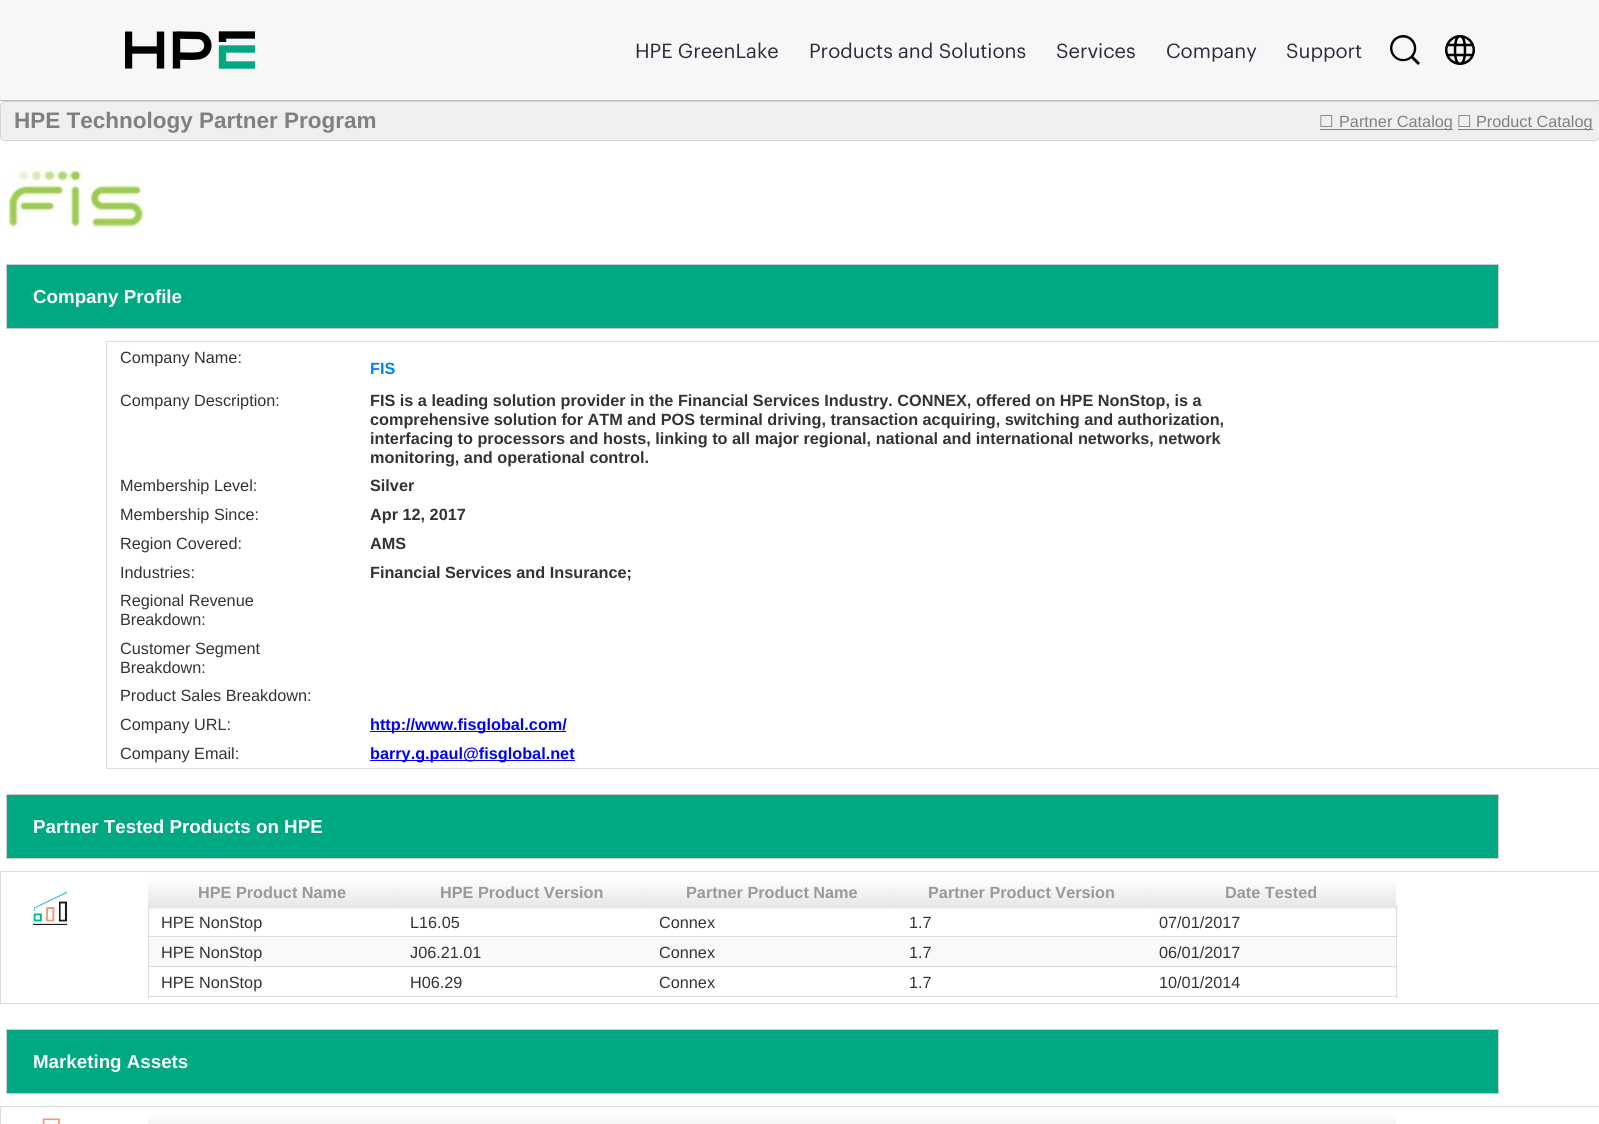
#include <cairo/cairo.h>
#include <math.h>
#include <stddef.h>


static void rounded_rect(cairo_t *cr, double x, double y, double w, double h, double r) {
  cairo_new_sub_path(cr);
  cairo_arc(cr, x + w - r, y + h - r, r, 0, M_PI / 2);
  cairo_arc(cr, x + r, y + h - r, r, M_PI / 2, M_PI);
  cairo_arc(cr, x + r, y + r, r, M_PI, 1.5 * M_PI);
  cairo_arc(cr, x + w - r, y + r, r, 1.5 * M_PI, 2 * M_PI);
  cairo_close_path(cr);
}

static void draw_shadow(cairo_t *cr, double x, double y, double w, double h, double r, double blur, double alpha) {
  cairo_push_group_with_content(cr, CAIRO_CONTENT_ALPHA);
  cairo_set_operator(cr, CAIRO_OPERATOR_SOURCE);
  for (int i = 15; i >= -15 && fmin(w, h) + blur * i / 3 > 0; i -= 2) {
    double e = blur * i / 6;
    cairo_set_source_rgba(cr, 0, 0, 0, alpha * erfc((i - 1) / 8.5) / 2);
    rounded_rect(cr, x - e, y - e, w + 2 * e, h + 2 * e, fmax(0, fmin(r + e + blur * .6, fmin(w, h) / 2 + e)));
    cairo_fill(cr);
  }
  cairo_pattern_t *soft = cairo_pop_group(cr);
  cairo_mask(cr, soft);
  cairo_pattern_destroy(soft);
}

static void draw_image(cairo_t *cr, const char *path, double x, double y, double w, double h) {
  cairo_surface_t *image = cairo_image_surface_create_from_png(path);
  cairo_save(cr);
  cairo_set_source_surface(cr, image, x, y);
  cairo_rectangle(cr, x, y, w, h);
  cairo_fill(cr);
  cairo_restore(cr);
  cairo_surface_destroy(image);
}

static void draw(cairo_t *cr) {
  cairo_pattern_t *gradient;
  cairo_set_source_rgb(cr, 1, 1, 1);
  cairo_paint(cr);
  cairo_set_source_rgb(cr, 187 / 255.0, 187 / 255.0, 187 / 255.0);
  cairo_rectangle(cr, 0, 100, 1599, 1);
  cairo_fill(cr);
  cairo_set_source_rgb(cr, 247 / 255.0, 247 / 255.0, 247 / 255.0);
  cairo_rectangle(cr, 0, 0, 1599, 100);
  cairo_fill(cr);
  cairo_save(cr);
  cairo_rectangle(cr, 125, 31, 130, 38);
  cairo_clip(cr);
  cairo_new_path(cr);
  cairo_move_to(cr, 128.5, 68.5);
  cairo_line_to(cr, 128.5, 31.5);
  cairo_move_to(cr, 160.5, 68.5);
  cairo_line_to(cr, 160.5, 31.5);
  cairo_move_to(cr, 128.5, 50);
  cairo_line_to(cr, 157, 50);
  cairo_move_to(cr, 176.5, 68.5);
  cairo_line_to(cr, 176.5, 31.5);
  cairo_move_to(cr, 176.5, 35);
  cairo_line_to(cr, 199.5, 35.5);
  cairo_curve_to(cr, 209.5, 37.5, 211, 51, 201.5, 55);
  cairo_curve_to(cr, 197.5, 57, 182, 56, 176.5, 56);
  cairo_move_to(cr, 222.5, 42);
  cairo_line_to(cr, 222.5, 35);
  cairo_line_to(cr, 255, 35);
  cairo_set_source_rgb(cr, 0, 0, 0);
  cairo_set_line_width(cr, 7.4);
  cairo_stroke(cr);
  cairo_restore(cr);
  cairo_new_path(cr);
  cairo_move_to(cr, 255, 65);
  cairo_line_to(cr, 222.5, 65);
  cairo_line_to(cr, 222.5, 49);
  cairo_line_to(cr, 255, 49);
  cairo_set_source_rgb(cr, 3 / 255.0, 168 / 255.0, 131 / 255.0);
  cairo_set_line_width(cr, 7.4);
  cairo_stroke(cr);
  draw_image(cr, "images/1.png", 1390, 35, 30, 30);
  draw_image(cr, "images/2.png", 1445, 35, 30, 30);
  cairo_set_source_rgb(cr, 239 / 255.0, 239 / 255.0, 239 / 255.0);
  rounded_rect(cr, 0.5, 101.5, 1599, 39, 4.5);
  cairo_fill_preserve(cr);
  cairo_set_source_rgb(cr, 212 / 255.0, 212 / 255.0, 212 / 255.0);
  cairo_set_line_width(cr, 1);
  cairo_stroke(cr);
  cairo_set_source_rgb(cr, 128 / 255.0, 128 / 255.0, 128 / 255.0);
  cairo_rectangle(cr, 1320, 129, 133, 1);
  cairo_fill(cr);
  cairo_rectangle(cr, 1458, 129, 135, 1);
  cairo_fill(cr);
  draw_image(cr, "images/3.png", 6, 167, 138, 61);
  cairo_set_source_rgb(cr, 1 / 255.0, 169 / 255.0, 130 / 255.0);
  cairo_rectangle(cr, 6.5, 264.5, 1492, 64);
  cairo_fill_preserve(cr);
  cairo_set_source_rgb(cr, 204 / 255.0, 204 / 255.0, 204 / 255.0);
  cairo_stroke(cr);
  cairo_rectangle(cr, 106.5, 341.5, 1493, 427);
  cairo_set_source_rgb(cr, 221 / 255.0, 221 / 255.0, 221 / 255.0);
  cairo_stroke(cr);
  cairo_set_source_rgb(cr, 0, 0, 1);
  cairo_rectangle(cr, 370, 731, 196, 1);
  cairo_fill(cr);
  cairo_rectangle(cr, 370, 760, 205, 1);
  cairo_fill(cr);
  cairo_set_source_rgb(cr, 1 / 255.0, 169 / 255.0, 130 / 255.0);
  cairo_rectangle(cr, 6.5, 794.5, 1492, 64);
  cairo_fill_preserve(cr);
  cairo_set_source_rgb(cr, 204 / 255.0, 204 / 255.0, 204 / 255.0);
  cairo_stroke(cr);
  cairo_rectangle(cr, 0.5, 871.5, 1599, 132);
  cairo_set_source_rgb(cr, 221 / 255.0, 221 / 255.0, 221 / 255.0);
  cairo_stroke(cr);
  draw_image(cr, "images/4.png", 33, 892, 35, 33);
  cairo_rectangle(cr, 1396, 906, 1, 92);
  cairo_fill(cr);
  cairo_rectangle(cr, 148, 996, 1250, 1);
  cairo_fill(cr);
  cairo_rectangle(cr, 148, 906, 1, 92);
  cairo_fill(cr);
  cairo_set_source_rgb(cr, 0, 0, 0);
  draw_shadow(cr, 148, 879, 250, 30, 0, 1, 0.05);
  gradient = cairo_pattern_create_linear(273, 878, 273, 908);
  cairo_pattern_add_color_stop_rgba(gradient, 0, 1, 1, 1, 1);
  cairo_pattern_add_color_stop_rgba(gradient, 1, 230 / 255.0, 230 / 255.0, 230 / 255.0, 1);
  cairo_set_source(cr, gradient);
  cairo_pattern_destroy(gradient);
  cairo_rectangle(cr, 148, 878, 250, 30);
  cairo_fill(cr);
  cairo_set_source_rgb(cr, 0, 0, 0);
  draw_shadow(cr, 398, 879, 250, 30, 0, 1, 0.05);
  gradient = cairo_pattern_create_linear(523, 878, 523, 908);
  cairo_pattern_add_color_stop_rgba(gradient, 0, 1, 1, 1, 1);
  cairo_pattern_add_color_stop_rgba(gradient, 1, 230 / 255.0, 230 / 255.0, 230 / 255.0, 1);
  cairo_set_source(cr, gradient);
  cairo_pattern_destroy(gradient);
  cairo_rectangle(cr, 398, 878, 250, 30);
  cairo_fill(cr);
  cairo_set_source_rgb(cr, 0, 0, 0);
  draw_shadow(cr, 648, 879, 248, 30, 0, 1, 0.05);
  gradient = cairo_pattern_create_linear(772, 878, 772, 908);
  cairo_pattern_add_color_stop_rgba(gradient, 0, 1, 1, 1, 1);
  cairo_pattern_add_color_stop_rgba(gradient, 1, 230 / 255.0, 230 / 255.0, 230 / 255.0, 1);
  cairo_set_source(cr, gradient);
  cairo_pattern_destroy(gradient);
  cairo_rectangle(cr, 648, 878, 248, 30);
  cairo_fill(cr);
  cairo_set_source_rgb(cr, 0, 0, 0);
  draw_shadow(cr, 896, 879, 250, 30, 0, 1, 0.05);
  gradient = cairo_pattern_create_linear(1021, 878, 1021, 908);
  cairo_pattern_add_color_stop_rgba(gradient, 0, 1, 1, 1, 1);
  cairo_pattern_add_color_stop_rgba(gradient, 1, 230 / 255.0, 230 / 255.0, 230 / 255.0, 1);
  cairo_set_source(cr, gradient);
  cairo_pattern_destroy(gradient);
  cairo_rectangle(cr, 896, 878, 250, 30);
  cairo_fill(cr);
  cairo_set_source_rgb(cr, 221 / 255.0, 221 / 255.0, 221 / 255.0);
  cairo_rectangle(cr, 1397, 906, 1, 1);
  cairo_fill(cr);
  cairo_set_source_rgb(cr, 0, 0, 0);
  draw_shadow(cr, 1146, 879, 250, 30, 0, 1, 0.05);
  gradient = cairo_pattern_create_linear(1271, 878, 1271, 908);
  cairo_pattern_add_color_stop_rgba(gradient, 0, 1, 1, 1, 1);
  cairo_pattern_add_color_stop_rgba(gradient, 1, 230 / 255.0, 230 / 255.0, 230 / 255.0, 1);
  cairo_set_source(cr, gradient);
  cairo_pattern_destroy(gradient);
  cairo_rectangle(cr, 1146, 878, 250, 30);
  cairo_fill(cr);
  cairo_set_source_rgb(cr, 249 / 255.0, 249 / 255.0, 249 / 255.0);
  cairo_rectangle(cr, 149, 938, 1247, 30);
  cairo_fill(cr);
  cairo_set_source_rgb(cr, 221 / 255.0, 221 / 255.0, 221 / 255.0);
  cairo_rectangle(cr, 148, 936, 1250, 1);
  cairo_fill(cr);
  cairo_rectangle(cr, 148, 966, 1250, 1);
  cairo_fill(cr);
  cairo_set_source_rgb(cr, 1 / 255.0, 169 / 255.0, 130 / 255.0);
  cairo_rectangle(cr, 6.5, 1029.5, 1492, 64);
  cairo_fill_preserve(cr);
  cairo_set_source_rgb(cr, 204 / 255.0, 204 / 255.0, 204 / 255.0);
  cairo_stroke(cr);
  cairo_rectangle(cr, 0.5, 1106.5, 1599, 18);
  cairo_set_source_rgb(cr, 221 / 255.0, 221 / 255.0, 221 / 255.0);
  cairo_stroke(cr);
  draw_image(cr, "images/5.png", 42, 1118, 19, 6);
  gradient = cairo_pattern_create_linear(572, 1113, 572, 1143);
  cairo_pattern_add_color_stop_rgba(gradient, 0, 1, 1, 1, 1);
  cairo_pattern_add_color_stop_rgba(gradient, 1, 230 / 255.0, 230 / 255.0, 230 / 255.0, 1);
  cairo_set_source(cr, gradient);
  cairo_pattern_destroy(gradient);
  cairo_rectangle(cr, 148, 1116, 848, 8);
  cairo_fill(cr);
  gradient = cairo_pattern_create_linear(1196, 1113, 1196, 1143);
  cairo_pattern_add_color_stop_rgba(gradient, 0, 1, 1, 1, 1);
  cairo_pattern_add_color_stop_rgba(gradient, 1, 230 / 255.0, 230 / 255.0, 230 / 255.0, 1);
  cairo_set_source(cr, gradient);
  cairo_pattern_destroy(gradient);
  cairo_rectangle(cr, 996, 1116, 400, 8);
  cairo_fill(cr);
  cairo_select_font_face(cr, "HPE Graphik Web", CAIRO_FONT_SLANT_NORMAL, CAIRO_FONT_WEIGHT_NORMAL);
  cairo_set_font_size(cr, 20);
  cairo_set_source_rgb(cr, 41 / 255.0, 45 / 255.0, 58 / 255.0);
  cairo_move_to(cr, 635, 58);
  cairo_show_text(cr, "HPE GreenLake");
  cairo_move_to(cr, 809, 58);
  cairo_show_text(cr, "Products and Solutions");
  cairo_move_to(cr, 1056, 58);
  cairo_show_text(cr, "Services");
  cairo_move_to(cr, 1166, 58);
  cairo_show_text(cr, "Company");
  cairo_move_to(cr, 1286, 58);
  cairo_show_text(cr, "Support");
  cairo_select_font_face(cr, "Liberation Sans", CAIRO_FONT_SLANT_NORMAL, CAIRO_FONT_WEIGHT_BOLD);
  cairo_set_font_size(cr, 22.5);
  cairo_set_source_rgb(cr, 128 / 255.0, 128 / 255.0, 128 / 255.0);
  cairo_move_to(cr, 14, 128);
  cairo_show_text(cr, "HPE Technology Partner Program");
  cairo_select_font_face(cr, "DejaVu Sans", CAIRO_FONT_SLANT_NORMAL, CAIRO_FONT_WEIGHT_NORMAL);
  cairo_set_font_size(cr, 16.25);
  cairo_move_to(cr, 1319, 127);
  cairo_show_text(cr, "☐");
  cairo_select_font_face(cr, "Liberation Sans", CAIRO_FONT_SLANT_NORMAL, CAIRO_FONT_WEIGHT_NORMAL);
  cairo_move_to(cr, 1339, 127);
  cairo_show_text(cr, "Partner Catalog");
  cairo_select_font_face(cr, "DejaVu Sans", CAIRO_FONT_SLANT_NORMAL, CAIRO_FONT_WEIGHT_NORMAL);
  cairo_move_to(cr, 1457, 127);
  cairo_show_text(cr, "☐");
  cairo_select_font_face(cr, "Liberation Sans", CAIRO_FONT_SLANT_NORMAL, CAIRO_FONT_WEIGHT_NORMAL);
  cairo_move_to(cr, 1476, 127);
  cairo_show_text(cr, "Product Catalog");
  cairo_select_font_face(cr, "Liberation Sans", CAIRO_FONT_SLANT_NORMAL, CAIRO_FONT_WEIGHT_BOLD);
  cairo_set_font_size(cr, 18.75);
  cairo_set_source_rgb(cr, 252 / 255.0, 252 / 255.0, 252 / 255.0);
  cairo_move_to(cr, 33, 303);
  cairo_show_text(cr, "Company Profile");
  cairo_select_font_face(cr, "Liberation Sans", CAIRO_FONT_SLANT_NORMAL, CAIRO_FONT_WEIGHT_NORMAL);
  cairo_set_font_size(cr, 16.25);
  cairo_set_source_rgb(cr, 51 / 255.0, 51 / 255.0, 51 / 255.0);
  cairo_move_to(cr, 120, 363);
  cairo_show_text(cr, "Company Name:");
  cairo_select_font_face(cr, "Liberation Sans", CAIRO_FONT_SLANT_NORMAL, CAIRO_FONT_WEIGHT_BOLD);
  cairo_set_source_rgb(cr, 0, 128 / 255.0, 1);
  cairo_move_to(cr, 370, 374);
  cairo_show_text(cr, "FIS");
  cairo_select_font_face(cr, "Liberation Sans", CAIRO_FONT_SLANT_NORMAL, CAIRO_FONT_WEIGHT_NORMAL);
  cairo_set_source_rgb(cr, 51 / 255.0, 51 / 255.0, 51 / 255.0);
  cairo_move_to(cr, 120, 406);
  cairo_show_text(cr, "Company Description:");
  cairo_select_font_face(cr, "Liberation Sans", CAIRO_FONT_SLANT_NORMAL, CAIRO_FONT_WEIGHT_BOLD);
  cairo_move_to(cr, 370, 406);
  cairo_show_text(cr, "FIS is a leading solution provider in the Financial Services Industry. CONNEX, offered on HPE NonStop, is a");
  cairo_move_to(cr, 370, 425);
  cairo_show_text(cr, "comprehensive solution for ATM and POS terminal driving, transaction acquiring, switching and authorization,");
  cairo_move_to(cr, 370, 444);
  cairo_show_text(cr, "interfacing to processors and hosts, linking to all major regional, national and international networks, network");
  cairo_move_to(cr, 370, 463);
  cairo_show_text(cr, "monitoring, and operational control.");
  cairo_select_font_face(cr, "Liberation Sans", CAIRO_FONT_SLANT_NORMAL, CAIRO_FONT_WEIGHT_NORMAL);
  cairo_move_to(cr, 120, 491);
  cairo_show_text(cr, "Membership Level:");
  cairo_select_font_face(cr, "Liberation Sans", CAIRO_FONT_SLANT_NORMAL, CAIRO_FONT_WEIGHT_BOLD);
  cairo_move_to(cr, 370, 491);
  cairo_show_text(cr, "Silver");
  cairo_select_font_face(cr, "Liberation Sans", CAIRO_FONT_SLANT_NORMAL, CAIRO_FONT_WEIGHT_NORMAL);
  cairo_move_to(cr, 120, 520);
  cairo_show_text(cr, "Membership Since:");
  cairo_select_font_face(cr, "Liberation Sans", CAIRO_FONT_SLANT_NORMAL, CAIRO_FONT_WEIGHT_BOLD);
  cairo_move_to(cr, 370, 520);
  cairo_show_text(cr, "Apr 12, 2017");
  cairo_select_font_face(cr, "Liberation Sans", CAIRO_FONT_SLANT_NORMAL, CAIRO_FONT_WEIGHT_NORMAL);
  cairo_move_to(cr, 120, 549);
  cairo_show_text(cr, "Region Covered:");
  cairo_select_font_face(cr, "Liberation Sans", CAIRO_FONT_SLANT_NORMAL, CAIRO_FONT_WEIGHT_BOLD);
  cairo_move_to(cr, 370, 549);
  cairo_show_text(cr, "AMS");
  cairo_select_font_face(cr, "Liberation Sans", CAIRO_FONT_SLANT_NORMAL, CAIRO_FONT_WEIGHT_NORMAL);
  cairo_move_to(cr, 120, 578);
  cairo_show_text(cr, "Industries:");
  cairo_select_font_face(cr, "Liberation Sans", CAIRO_FONT_SLANT_NORMAL, CAIRO_FONT_WEIGHT_BOLD);
  cairo_move_to(cr, 370, 578);
  cairo_show_text(cr, "Financial Services and Insurance;");
  cairo_select_font_face(cr, "Liberation Sans", CAIRO_FONT_SLANT_NORMAL, CAIRO_FONT_WEIGHT_NORMAL);
  cairo_move_to(cr, 120, 606);
  cairo_show_text(cr, "Regional Revenue");
  cairo_move_to(cr, 120, 625);
  cairo_show_text(cr, "Breakdown:");
  cairo_move_to(cr, 120, 654);
  cairo_show_text(cr, "Customer Segment");
  cairo_move_to(cr, 120, 673);
  cairo_show_text(cr, "Breakdown:");
  cairo_move_to(cr, 120, 701);
  cairo_show_text(cr, "Product Sales Breakdown:");
  cairo_move_to(cr, 120, 730);
  cairo_show_text(cr, "Company URL:");
  cairo_select_font_face(cr, "Liberation Sans", CAIRO_FONT_SLANT_NORMAL, CAIRO_FONT_WEIGHT_BOLD);
  cairo_set_source_rgb(cr, 0, 0, 1);
  cairo_move_to(cr, 370, 730);
  cairo_show_text(cr, "http://www.fisglobal.com/");
  cairo_select_font_face(cr, "Liberation Sans", CAIRO_FONT_SLANT_NORMAL, CAIRO_FONT_WEIGHT_NORMAL);
  cairo_set_source_rgb(cr, 51 / 255.0, 51 / 255.0, 51 / 255.0);
  cairo_move_to(cr, 120, 759);
  cairo_show_text(cr, "Company Email:");
  cairo_select_font_face(cr, "Liberation Sans", CAIRO_FONT_SLANT_NORMAL, CAIRO_FONT_WEIGHT_BOLD);
  cairo_set_source_rgb(cr, 0, 0, 1);
  cairo_move_to(cr, 370, 759);
  cairo_show_text(cr, "barry.g.paul@fisglobal.net");
  cairo_set_font_size(cr, 18.75);
  cairo_set_source_rgb(cr, 252 / 255.0, 252 / 255.0, 252 / 255.0);
  cairo_move_to(cr, 33, 833);
  cairo_show_text(cr, "Partner Tested Products on HPE");
  cairo_set_font_size(cr, 16.25);
  cairo_set_source_rgb(cr, 153 / 255.0, 153 / 255.0, 153 / 255.0);
  cairo_move_to(cr, 198, 898);
  cairo_show_text(cr, "HPE Product Name");
  cairo_move_to(cr, 440, 898);
  cairo_show_text(cr, "HPE Product Version");
  cairo_move_to(cr, 686, 898);
  cairo_show_text(cr, "Partner Product Name");
  cairo_move_to(cr, 928, 898);
  cairo_show_text(cr, "Partner Product Version");
  cairo_move_to(cr, 1225, 898);
  cairo_show_text(cr, "Date Tested");
  cairo_select_font_face(cr, "Liberation Sans", CAIRO_FONT_SLANT_NORMAL, CAIRO_FONT_WEIGHT_NORMAL);
  cairo_set_source_rgb(cr, 51 / 255.0, 51 / 255.0, 51 / 255.0);
  cairo_move_to(cr, 161, 928);
  cairo_show_text(cr, "HPE NonStop");
  cairo_move_to(cr, 410, 928);
  cairo_show_text(cr, "L16.05");
  cairo_move_to(cr, 659, 928);
  cairo_show_text(cr, "Connex");
  cairo_move_to(cr, 909, 928);
  cairo_show_text(cr, "1.7");
  cairo_move_to(cr, 1159, 928);
  cairo_show_text(cr, "07/01/2017");
  cairo_move_to(cr, 161, 958);
  cairo_show_text(cr, "HPE NonStop");
  cairo_move_to(cr, 410, 958);
  cairo_show_text(cr, "J06.21.01");
  cairo_move_to(cr, 659, 958);
  cairo_show_text(cr, "Connex");
  cairo_move_to(cr, 909, 958);
  cairo_show_text(cr, "1.7");
  cairo_move_to(cr, 1159, 958);
  cairo_show_text(cr, "06/01/2017");
  cairo_move_to(cr, 161, 988);
  cairo_show_text(cr, "HPE NonStop");
  cairo_move_to(cr, 410, 988);
  cairo_show_text(cr, "H06.29");
  cairo_move_to(cr, 659, 988);
  cairo_show_text(cr, "Connex");
  cairo_move_to(cr, 909, 988);
  cairo_show_text(cr, "1.7");
  cairo_move_to(cr, 1159, 988);
  cairo_show_text(cr, "10/01/2014");
  cairo_select_font_face(cr, "Liberation Sans", CAIRO_FONT_SLANT_NORMAL, CAIRO_FONT_WEIGHT_BOLD);
  cairo_set_font_size(cr, 18.75);
  cairo_set_source_rgb(cr, 252 / 255.0, 252 / 255.0, 252 / 255.0);
  cairo_move_to(cr, 33, 1068);
  cairo_show_text(cr, "Marketing Assets");
}

int main(void) {
  cairo_surface_t *surface = cairo_image_surface_create(CAIRO_FORMAT_RGB24, 1599, 1124);
  cairo_t *cr = cairo_create(surface);
  cairo_font_options_t *options = cairo_font_options_create();
  cairo_font_options_set_hint_metrics(options, CAIRO_HINT_METRICS_OFF);
  cairo_font_options_set_hint_style(options, CAIRO_HINT_STYLE_NONE);
  cairo_set_font_options(cr, options);
  cairo_set_miter_limit(cr, 4);
  draw(cr);
  cairo_surface_write_to_png(surface, "out.png");
  cairo_font_options_destroy(options);
  cairo_destroy(cr);
  cairo_surface_destroy(surface);
  return 0;
}
